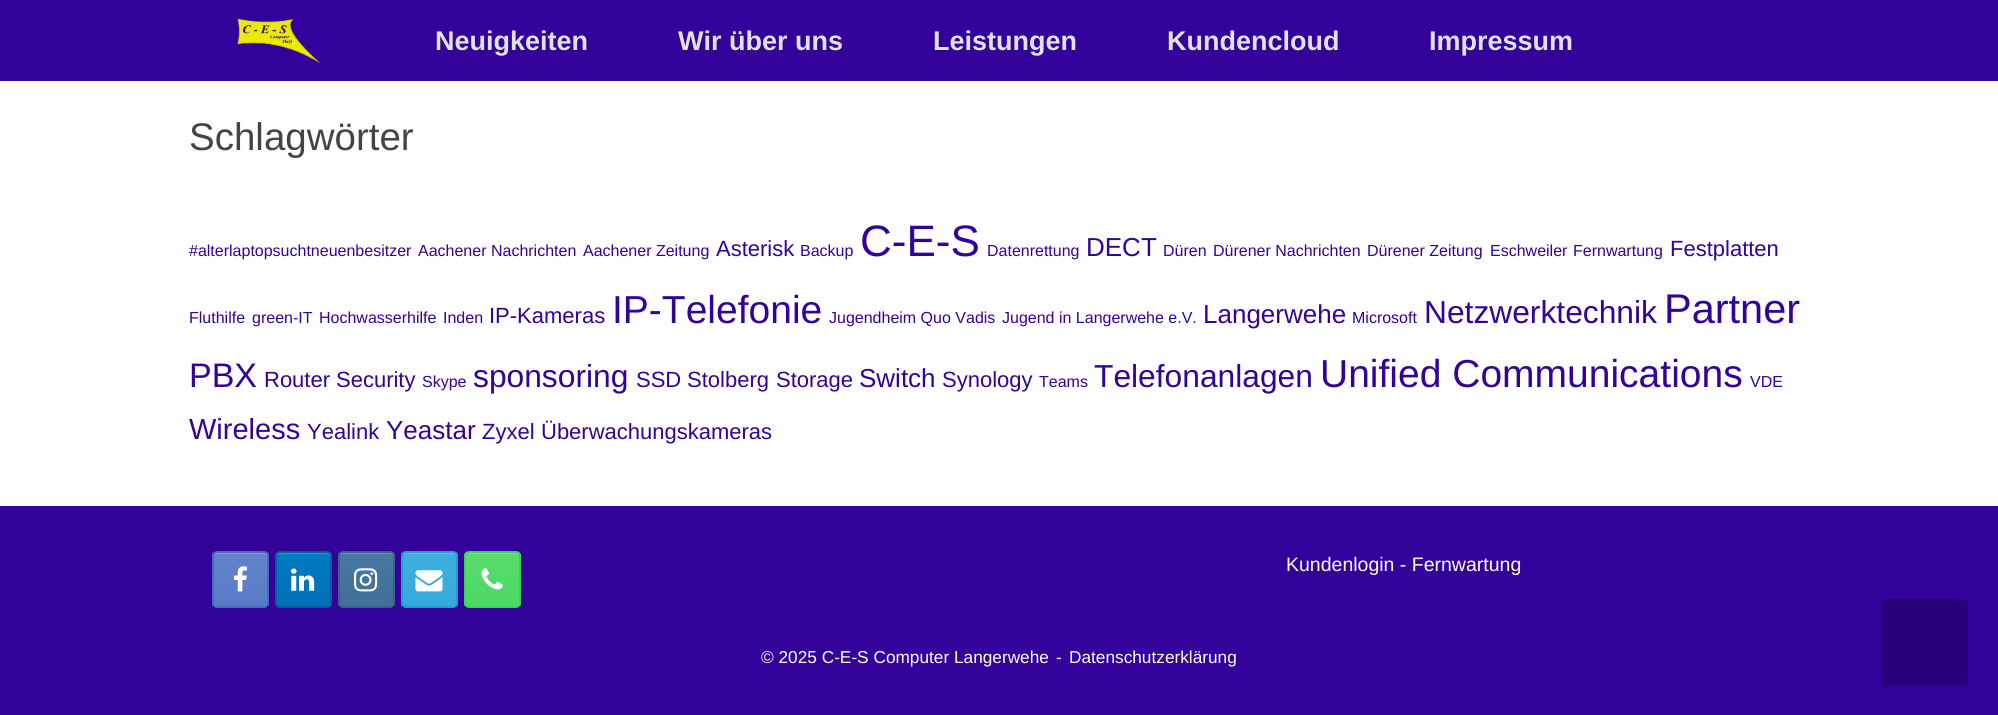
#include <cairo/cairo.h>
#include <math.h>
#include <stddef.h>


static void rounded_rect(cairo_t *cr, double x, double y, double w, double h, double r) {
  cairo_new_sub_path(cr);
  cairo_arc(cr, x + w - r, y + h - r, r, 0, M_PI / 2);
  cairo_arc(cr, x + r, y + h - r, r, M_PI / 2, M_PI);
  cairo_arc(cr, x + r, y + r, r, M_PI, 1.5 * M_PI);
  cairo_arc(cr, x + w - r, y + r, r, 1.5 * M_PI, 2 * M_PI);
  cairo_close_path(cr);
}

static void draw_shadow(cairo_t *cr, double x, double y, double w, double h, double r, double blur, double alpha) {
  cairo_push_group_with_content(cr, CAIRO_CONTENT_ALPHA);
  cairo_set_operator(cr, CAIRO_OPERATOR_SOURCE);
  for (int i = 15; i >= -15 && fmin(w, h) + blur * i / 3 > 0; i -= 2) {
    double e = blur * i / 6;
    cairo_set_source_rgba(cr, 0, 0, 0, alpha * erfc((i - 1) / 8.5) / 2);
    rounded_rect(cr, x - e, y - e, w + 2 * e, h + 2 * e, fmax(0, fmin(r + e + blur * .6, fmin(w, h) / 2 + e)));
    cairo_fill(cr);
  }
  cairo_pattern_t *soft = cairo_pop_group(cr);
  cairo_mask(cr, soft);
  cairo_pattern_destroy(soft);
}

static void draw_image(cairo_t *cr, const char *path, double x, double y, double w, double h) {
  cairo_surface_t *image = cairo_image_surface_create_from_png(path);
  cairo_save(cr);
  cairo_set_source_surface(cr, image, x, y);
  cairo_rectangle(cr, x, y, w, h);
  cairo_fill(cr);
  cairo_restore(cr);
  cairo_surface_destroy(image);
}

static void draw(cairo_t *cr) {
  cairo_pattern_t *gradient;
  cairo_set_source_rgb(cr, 50 / 255.0, 2 / 255.0, 154 / 255.0);
  cairo_paint(cr);
  draw_image(cr, "images/1.png", 237, 18, 84, 46);
  cairo_set_source_rgb(cr, 1, 1, 1);
  cairo_rectangle(cr, 0, 81, 1998, 425);
  cairo_fill(cr);
  cairo_set_source_rgb(cr, 0, 0, 0);
  draw_shadow(cr, 212, 552, 57, 57, 5, 1, 0.1);
  cairo_save(cr);
  rounded_rect(cr, 212, 551, 57, 57, 5);
  cairo_clip(cr);
  gradient = cairo_pattern_create_linear(213, 606, 213, 552);
  cairo_pattern_add_color_stop_rgba(gradient, 0, 89 / 255.0, 122 / 255.0, 199 / 255.0, 1);
  cairo_pattern_add_color_stop_rgba(gradient, 1, 100 / 255.0, 131 / 255.0, 203 / 255.0, 1);
  cairo_set_source(cr, gradient);
  cairo_pattern_destroy(gradient);
  cairo_rectangle(cr, 212, 552, 57, 54);
  cairo_fill(cr);
  cairo_restore(cr);
  cairo_set_source_rgb(cr, 131 / 255.0, 156 / 255.0, 213 / 255.0);
  cairo_new_path(cr);
  cairo_move_to(cr, 216, 554);
  cairo_line_to(cr, 264, 554);
  cairo_curve_to(cr, 266, 554, 267, 555, 267, 556);
  cairo_curve_to(cr, 267, 550, 260, 552, 256, 552);
  cairo_line_to(cr, 224, 552);
  cairo_curve_to(cr, 220, 552, 213, 550, 213, 556);
  cairo_curve_to(cr, 213, 555, 214, 554, 216, 554);
  cairo_close_path(cr);
  cairo_fill(cr);
  rounded_rect(cr, 213, 552, 55, 55, 4);
  cairo_set_source_rgb(cr, 70 / 255.0, 107 / 255.0, 193 / 255.0);
  cairo_stroke(cr);
  draw_image(cr, "images/2.png", 233, 566, 14, 26);
  cairo_set_source_rgb(cr, 0, 0, 0);
  draw_shadow(cr, 275, 552, 57, 57, 5, 1, 0.1);
  cairo_save(cr);
  rounded_rect(cr, 275, 551, 57, 57, 5);
  cairo_clip(cr);
  gradient = cairo_pattern_create_linear(276, 606, 276, 552);
  cairo_pattern_add_color_stop_rgba(gradient, 0, 0, 112 / 255.0, 180 / 255.0, 1);
  cairo_pattern_add_color_stop_rgba(gradient, 1, 0, 122 / 255.0, 195 / 255.0, 1);
  cairo_set_source(cr, gradient);
  cairo_pattern_destroy(gradient);
  cairo_rectangle(cr, 275, 552, 57, 54);
  cairo_fill(cr);
  cairo_restore(cr);
  cairo_set_source_rgb(cr, 51 / 255.0, 149 / 255.0, 207 / 255.0);
  cairo_new_path(cr);
  cairo_move_to(cr, 279, 554);
  cairo_line_to(cr, 327, 554);
  cairo_curve_to(cr, 329, 554, 330, 555, 330, 556);
  cairo_curve_to(cr, 330, 550, 323, 552, 319, 552);
  cairo_line_to(cr, 287, 552);
  cairo_curve_to(cr, 283, 552, 276, 550, 276, 556);
  cairo_curve_to(cr, 276, 555, 277, 554, 279, 554);
  cairo_close_path(cr);
  cairo_fill(cr);
  rounded_rect(cr, 276, 552, 55, 55, 4);
  cairo_set_source_rgb(cr, 0, 96 / 255.0, 155 / 255.0);
  cairo_stroke(cr);
  draw_image(cr, "images/3.png", 291, 568, 24, 23);
  cairo_set_source_rgb(cr, 0, 0, 0);
  draw_shadow(cr, 338, 552, 57, 57, 5, 1, 0.1);
  cairo_save(cr);
  rounded_rect(cr, 338, 551, 57, 57, 5);
  cairo_clip(cr);
  gradient = cairo_pattern_create_linear(339, 606, 339, 552);
  cairo_pattern_add_color_stop_rgba(gradient, 0, 66 / 255.0, 111 / 255.0, 152 / 255.0, 1);
  cairo_pattern_add_color_stop_rgba(gradient, 1, 71 / 255.0, 119 / 255.0, 163 / 255.0, 1);
  cairo_set_source(cr, gradient);
  cairo_pattern_destroy(gradient);
  cairo_rectangle(cr, 338, 552, 57, 54);
  cairo_fill(cr);
  cairo_restore(cr);
  cairo_set_source_rgb(cr, 108 / 255.0, 146 / 255.0, 181 / 255.0);
  cairo_new_path(cr);
  cairo_move_to(cr, 342, 554);
  cairo_line_to(cr, 390, 554);
  cairo_curve_to(cr, 392, 554, 393, 555, 393, 556);
  cairo_curve_to(cr, 393, 550, 386, 552, 382, 552);
  cairo_line_to(cr, 350, 552);
  cairo_curve_to(cr, 346, 552, 339, 550, 339, 556);
  cairo_curve_to(cr, 339, 555, 340, 554, 342, 554);
  cairo_close_path(cr);
  cairo_fill(cr);
  rounded_rect(cr, 339, 552, 55, 55, 4);
  cairo_set_source_rgb(cr, 58 / 255.0, 98 / 255.0, 134 / 255.0);
  cairo_stroke(cr);
  draw_image(cr, "images/4.png", 354, 568, 24, 24);
  cairo_set_source_rgb(cr, 0, 0, 0);
  draw_shadow(cr, 401, 552, 57, 57, 5, 1, 0.1);
  cairo_save(cr);
  rounded_rect(cr, 401, 551, 57, 57, 5);
  cairo_clip(cr);
  gradient = cairo_pattern_create_linear(402, 606, 402, 552);
  cairo_pattern_add_color_stop_rgba(gradient, 0, 52 / 255.0, 170 / 255.0, 220 / 255.0, 1);
  cairo_pattern_add_color_stop_rgba(gradient, 1, 65 / 255.0, 175 / 255.0, 222 / 255.0, 1);
  cairo_set_source(cr, gradient);
  cairo_pattern_destroy(gradient);
  cairo_rectangle(cr, 401, 552, 57, 54);
  cairo_fill(cr);
  cairo_restore(cr);
  cairo_set_source_rgb(cr, 103 / 255.0, 191 / 255.0, 229 / 255.0);
  cairo_new_path(cr);
  cairo_move_to(cr, 405, 554);
  cairo_line_to(cr, 453, 554);
  cairo_curve_to(cr, 455, 554, 456, 555, 456, 556);
  cairo_curve_to(cr, 456, 550, 449, 552, 445, 552);
  cairo_line_to(cr, 413, 552);
  cairo_curve_to(cr, 409, 552, 402, 550, 402, 556);
  cairo_curve_to(cr, 402, 555, 403, 554, 405, 554);
  cairo_close_path(cr);
  cairo_fill(cr);
  rounded_rect(cr, 402, 552, 55, 55, 4);
  cairo_set_source_rgb(cr, 36 / 255.0, 158 / 255.0, 210 / 255.0);
  cairo_stroke(cr);
  draw_image(cr, "images/5.png", 415, 570, 28, 22);
  cairo_set_source_rgb(cr, 0, 0, 0);
  draw_shadow(cr, 464, 552, 57, 57, 5, 1, 0.1);
  cairo_save(cr);
  rounded_rect(cr, 464, 551, 57, 57, 5);
  cairo_clip(cr);
  gradient = cairo_pattern_create_linear(465, 606, 465, 552);
  cairo_pattern_add_color_stop_rgba(gradient, 0, 76 / 255.0, 217 / 255.0, 100 / 255.0, 1);
  cairo_pattern_add_color_stop_rgba(gradient, 1, 89 / 255.0, 220 / 255.0, 111 / 255.0, 1);
  cairo_set_source(cr, gradient);
  cairo_pattern_destroy(gradient);
  cairo_rectangle(cr, 464, 552, 57, 54);
  cairo_fill(cr);
  cairo_restore(cr);
  cairo_set_source_rgb(cr, 122 / 255.0, 227 / 255.0, 140 / 255.0);
  cairo_new_path(cr);
  cairo_move_to(cr, 468, 554);
  cairo_line_to(cr, 516, 554);
  cairo_curve_to(cr, 518, 554, 519, 555, 519, 556);
  cairo_curve_to(cr, 519, 550, 512, 552, 508, 552);
  cairo_line_to(cr, 476, 552);
  cairo_curve_to(cr, 472, 552, 465, 550, 465, 556);
  cairo_curve_to(cr, 465, 555, 466, 554, 468, 554);
  cairo_close_path(cr);
  cairo_fill(cr);
  rounded_rect(cr, 465, 552, 55, 55, 4);
  cairo_set_source_rgb(cr, 55 / 255.0, 213 / 255.0, 82 / 255.0);
  cairo_stroke(cr);
  draw_image(cr, "images/6.png", 481, 568, 22, 22);
  cairo_set_source_rgb(cr, 40 / 255.0, 2 / 255.0, 123 / 255.0);
  rounded_rect(cr, 1881, 599, 87, 87, 5);
  cairo_fill(cr);
  cairo_select_font_face(cr, "Liberation Sans", CAIRO_FONT_SLANT_NORMAL, CAIRO_FONT_WEIGHT_BOLD);
  cairo_set_font_size(cr, 27);
  cairo_set_source_rgb(cr, 226 / 255.0, 226 / 255.0, 226 / 255.0);
  cairo_move_to(cr, 435, 50);
  cairo_show_text(cr, "Neuigkeiten");
  cairo_move_to(cr, 678, 50);
  cairo_show_text(cr, "Wir über uns");
  cairo_move_to(cr, 933, 50);
  cairo_show_text(cr, "Leistungen");
  cairo_move_to(cr, 1167, 50);
  cairo_show_text(cr, "Kundencloud");
  cairo_move_to(cr, 1429, 50);
  cairo_show_text(cr, "Impressum");
  cairo_select_font_face(cr, "Liberation Sans", CAIRO_FONT_SLANT_NORMAL, CAIRO_FONT_WEIGHT_NORMAL);
  cairo_set_font_size(cr, 38.5);
  cairo_set_source_rgb(cr, 68 / 255.0, 68 / 255.0, 68 / 255.0);
  cairo_move_to(cr, 189, 150);
  cairo_show_text(cr, "Schlagwörter");
  cairo_set_font_size(cr, 16);
  cairo_set_source_rgb(cr, 50 / 255.0, 2 / 255.0, 154 / 255.0);
  cairo_move_to(cr, 189, 256);
  cairo_show_text(cr, "#alterlaptopsuchtneuenbesitzer");
  cairo_move_to(cr, 418, 256);
  cairo_show_text(cr, "Aachener Nachrichten");
  cairo_move_to(cr, 583, 256);
  cairo_show_text(cr, "Aachener Zeitung");
  cairo_set_font_size(cr, 22);
  cairo_move_to(cr, 716, 256);
  cairo_show_text(cr, "Asterisk");
  cairo_set_font_size(cr, 16);
  cairo_move_to(cr, 800, 256);
  cairo_show_text(cr, "Backup");
  cairo_set_font_size(cr, 44);
  cairo_move_to(cr, 860, 256);
  cairo_show_text(cr, "C-E-S");
  cairo_set_font_size(cr, 16);
  cairo_move_to(cr, 987, 256);
  cairo_show_text(cr, "Datenrettung");
  cairo_set_font_size(cr, 26);
  cairo_move_to(cr, 1086, 256);
  cairo_show_text(cr, "DECT");
  cairo_set_font_size(cr, 16);
  cairo_move_to(cr, 1163, 256);
  cairo_show_text(cr, "Düren");
  cairo_move_to(cr, 1213, 256);
  cairo_show_text(cr, "Dürener Nachrichten");
  cairo_move_to(cr, 1367, 256);
  cairo_show_text(cr, "Dürener Zeitung");
  cairo_move_to(cr, 1490, 256);
  cairo_show_text(cr, "Eschweiler");
  cairo_move_to(cr, 1573, 256);
  cairo_show_text(cr, "Fernwartung");
  cairo_set_font_size(cr, 22);
  cairo_move_to(cr, 1670, 256);
  cairo_show_text(cr, "Festplatten");
  cairo_set_font_size(cr, 16);
  cairo_move_to(cr, 189, 323);
  cairo_show_text(cr, "Fluthilfe");
  cairo_move_to(cr, 252, 323);
  cairo_show_text(cr, "green-IT");
  cairo_move_to(cr, 319, 323);
  cairo_show_text(cr, "Hochwasserhilfe");
  cairo_move_to(cr, 443, 323);
  cairo_show_text(cr, "Inden");
  cairo_set_font_size(cr, 22);
  cairo_move_to(cr, 489, 323);
  cairo_show_text(cr, "IP-Kameras");
  cairo_set_font_size(cr, 39);
  cairo_move_to(cr, 612, 323);
  cairo_show_text(cr, "IP-Telefonie");
  cairo_set_font_size(cr, 16);
  cairo_move_to(cr, 829, 323);
  cairo_show_text(cr, "Jugendheim Quo Vadis");
  cairo_move_to(cr, 1002, 323);
  cairo_show_text(cr, "Jugend in Langerwehe e.V.");
  cairo_set_font_size(cr, 26);
  cairo_move_to(cr, 1203, 323);
  cairo_show_text(cr, "Langerwehe");
  cairo_set_font_size(cr, 16);
  cairo_move_to(cr, 1352, 323);
  cairo_show_text(cr, "Microsoft");
  cairo_set_font_size(cr, 31.75);
  cairo_move_to(cr, 1424, 323);
  cairo_show_text(cr, "Netzwerktechnik");
  cairo_set_font_size(cr, 41.5);
  cairo_move_to(cr, 1664, 323);
  cairo_show_text(cr, "Partner");
  cairo_set_font_size(cr, 34);
  cairo_move_to(cr, 189, 387);
  cairo_show_text(cr, "PBX");
  cairo_set_font_size(cr, 22);
  cairo_move_to(cr, 264, 387);
  cairo_show_text(cr, "Router");
  cairo_move_to(cr, 336, 387);
  cairo_show_text(cr, "Security");
  cairo_set_font_size(cr, 16);
  cairo_move_to(cr, 422, 387);
  cairo_show_text(cr, "Skype");
  cairo_set_font_size(cr, 31.75);
  cairo_move_to(cr, 473, 387);
  cairo_show_text(cr, "sponsoring");
  cairo_set_font_size(cr, 22);
  cairo_move_to(cr, 636, 387);
  cairo_show_text(cr, "SSD");
  cairo_move_to(cr, 687, 387);
  cairo_show_text(cr, "Stolberg");
  cairo_move_to(cr, 776, 387);
  cairo_show_text(cr, "Storage");
  cairo_set_font_size(cr, 26);
  cairo_move_to(cr, 859, 387);
  cairo_show_text(cr, "Switch");
  cairo_set_font_size(cr, 22);
  cairo_move_to(cr, 942, 387);
  cairo_show_text(cr, "Synology");
  cairo_set_font_size(cr, 16);
  cairo_move_to(cr, 1039, 387);
  cairo_show_text(cr, "Teams");
  cairo_set_font_size(cr, 31.75);
  cairo_move_to(cr, 1094, 387);
  cairo_show_text(cr, "Telefonanlagen");
  cairo_set_font_size(cr, 39);
  cairo_move_to(cr, 1320, 387);
  cairo_show_text(cr, "Unified Communications");
  cairo_set_font_size(cr, 16);
  cairo_move_to(cr, 1750, 387);
  cairo_show_text(cr, "VDE");
  cairo_set_font_size(cr, 29);
  cairo_move_to(cr, 189, 439);
  cairo_show_text(cr, "Wireless");
  cairo_set_font_size(cr, 22);
  cairo_move_to(cr, 307, 439);
  cairo_show_text(cr, "Yealink");
  cairo_set_font_size(cr, 26);
  cairo_move_to(cr, 386, 439);
  cairo_show_text(cr, "Yeastar");
  cairo_set_font_size(cr, 22);
  cairo_move_to(cr, 482, 439);
  cairo_show_text(cr, "Zyxel");
  cairo_move_to(cr, 541, 439);
  cairo_show_text(cr, "Überwachungskameras");
  cairo_set_font_size(cr, 19.5);
  cairo_set_source_rgb(cr, 1, 1, 1);
  cairo_move_to(cr, 1286, 571);
  cairo_show_text(cr, "Kundenlogin - Fernwartung");
  cairo_set_font_size(cr, 17.25);
  cairo_move_to(cr, 761, 663);
  cairo_show_text(cr, "© 2025 C-E-S Computer Langerwehe");
  cairo_move_to(cr, 1056, 663);
  cairo_show_text(cr, "-");
  cairo_move_to(cr, 1069, 663);
  cairo_show_text(cr, "Datenschutzerklärung");
}

int main(void) {
  cairo_surface_t *surface = cairo_image_surface_create(CAIRO_FORMAT_RGB24, 1998, 715);
  cairo_t *cr = cairo_create(surface);
  cairo_font_options_t *options = cairo_font_options_create();
  cairo_font_options_set_hint_metrics(options, CAIRO_HINT_METRICS_OFF);
  cairo_font_options_set_hint_style(options, CAIRO_HINT_STYLE_NONE);
  cairo_set_font_options(cr, options);
  cairo_set_miter_limit(cr, 4);
  draw(cr);
  cairo_surface_write_to_png(surface, "out.png");
  cairo_font_options_destroy(options);
  cairo_destroy(cr);
  cairo_surface_destroy(surface);
  return 0;
}
